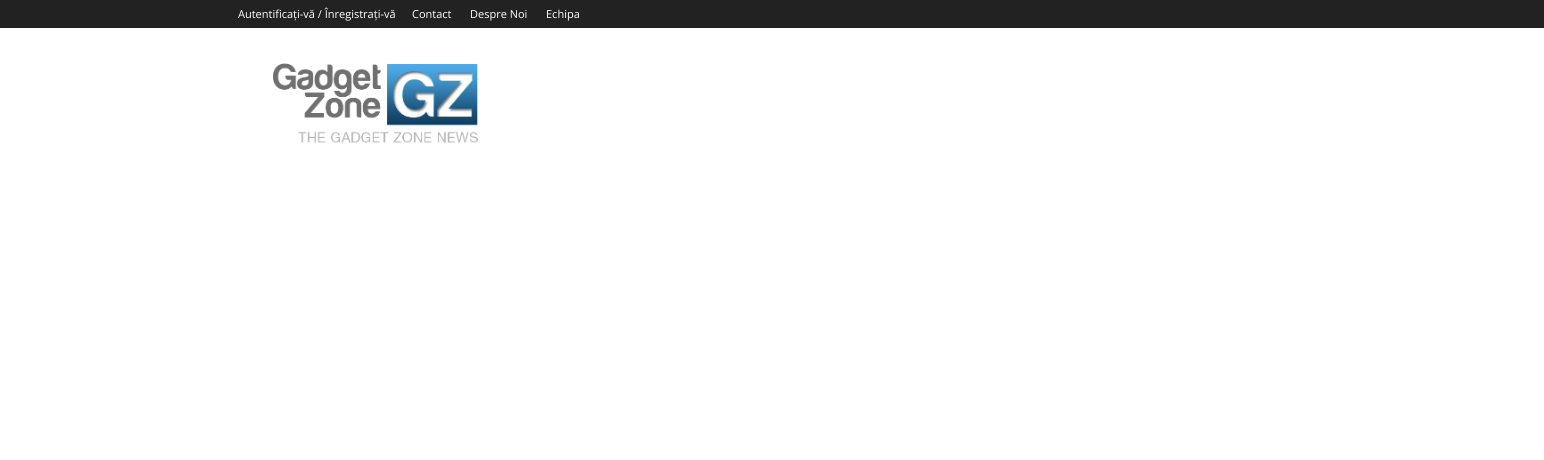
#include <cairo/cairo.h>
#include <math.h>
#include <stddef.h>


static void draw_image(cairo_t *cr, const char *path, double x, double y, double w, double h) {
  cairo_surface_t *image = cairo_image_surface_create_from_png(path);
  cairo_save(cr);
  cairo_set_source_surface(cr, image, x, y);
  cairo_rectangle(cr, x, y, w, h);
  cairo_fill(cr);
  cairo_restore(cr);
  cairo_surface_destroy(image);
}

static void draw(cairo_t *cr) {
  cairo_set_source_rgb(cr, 1, 1, 1);
  cairo_paint(cr);
  cairo_set_source_rgb(cr, 34 / 255.0, 34 / 255.0, 34 / 255.0);
  cairo_rectangle(cr, 0, 0, 1544, 28);
  cairo_fill(cr);
  draw_image(cr, "images/1.png", 273, 63, 205, 80);
  cairo_select_font_face(cr, "Open Sans", CAIRO_FONT_SLANT_NORMAL, CAIRO_FONT_WEIGHT_NORMAL);
  cairo_set_font_size(cr, 11);
  cairo_set_source_rgb(cr, 1, 1, 1);
  cairo_move_to(cr, 238, 18);
  cairo_show_text(cr, "Autentificați-vă / Înregistrați-vă");
  cairo_move_to(cr, 412, 18);
  cairo_show_text(cr, "Contact");
  cairo_move_to(cr, 470, 18);
  cairo_show_text(cr, "Despre Noi");
  cairo_move_to(cr, 546, 18);
  cairo_show_text(cr, "Echipa");
}

int main(void) {
  cairo_surface_t *surface = cairo_image_surface_create(CAIRO_FORMAT_RGB24, 1544, 460);
  cairo_t *cr = cairo_create(surface);
  cairo_font_options_t *options = cairo_font_options_create();
  cairo_font_options_set_hint_metrics(options, CAIRO_HINT_METRICS_OFF);
  cairo_font_options_set_hint_style(options, CAIRO_HINT_STYLE_NONE);
  cairo_set_font_options(cr, options);
  cairo_set_miter_limit(cr, 4);
  draw(cr);
  cairo_surface_write_to_png(surface, "out.png");
  cairo_font_options_destroy(options);
  cairo_destroy(cr);
  cairo_surface_destroy(surface);
  return 0;
}
